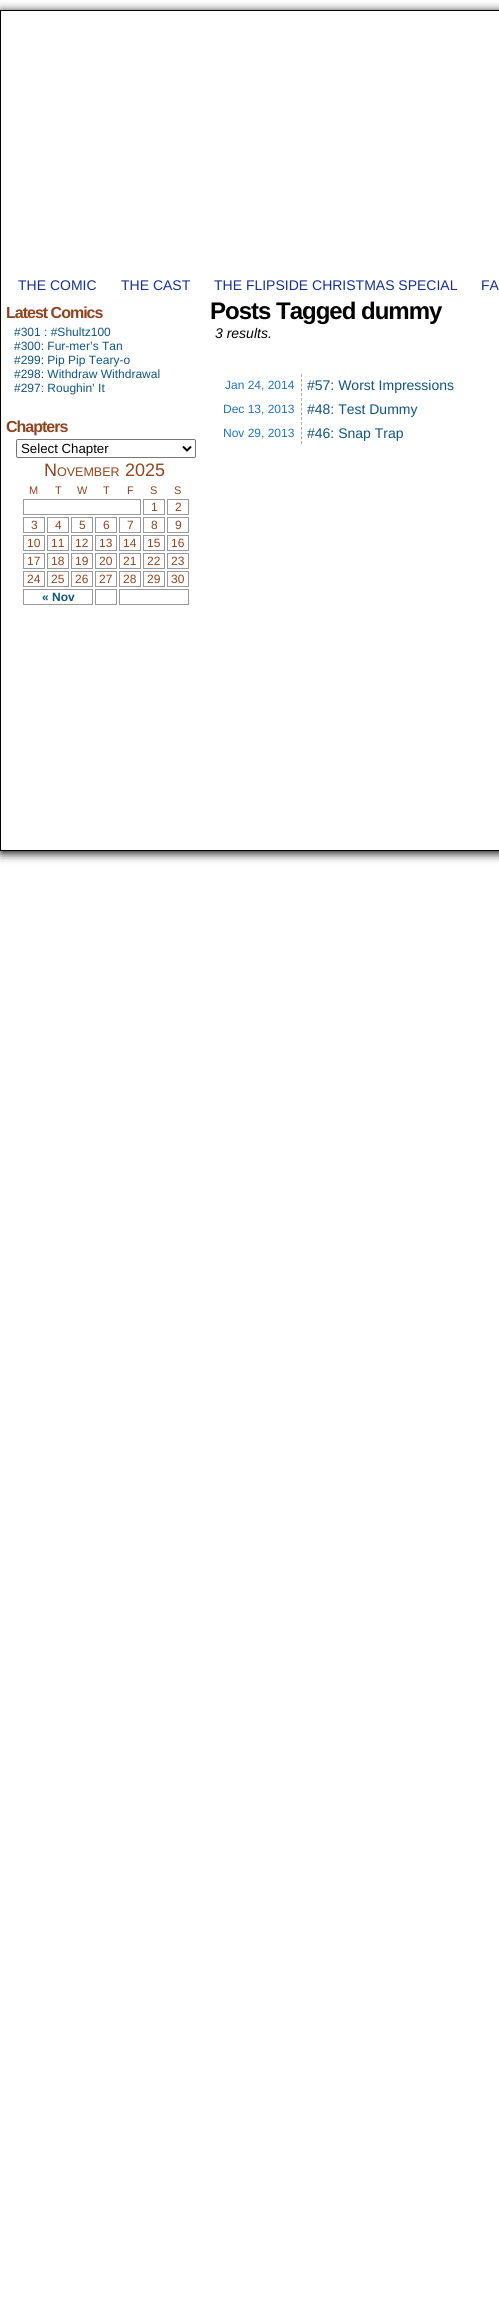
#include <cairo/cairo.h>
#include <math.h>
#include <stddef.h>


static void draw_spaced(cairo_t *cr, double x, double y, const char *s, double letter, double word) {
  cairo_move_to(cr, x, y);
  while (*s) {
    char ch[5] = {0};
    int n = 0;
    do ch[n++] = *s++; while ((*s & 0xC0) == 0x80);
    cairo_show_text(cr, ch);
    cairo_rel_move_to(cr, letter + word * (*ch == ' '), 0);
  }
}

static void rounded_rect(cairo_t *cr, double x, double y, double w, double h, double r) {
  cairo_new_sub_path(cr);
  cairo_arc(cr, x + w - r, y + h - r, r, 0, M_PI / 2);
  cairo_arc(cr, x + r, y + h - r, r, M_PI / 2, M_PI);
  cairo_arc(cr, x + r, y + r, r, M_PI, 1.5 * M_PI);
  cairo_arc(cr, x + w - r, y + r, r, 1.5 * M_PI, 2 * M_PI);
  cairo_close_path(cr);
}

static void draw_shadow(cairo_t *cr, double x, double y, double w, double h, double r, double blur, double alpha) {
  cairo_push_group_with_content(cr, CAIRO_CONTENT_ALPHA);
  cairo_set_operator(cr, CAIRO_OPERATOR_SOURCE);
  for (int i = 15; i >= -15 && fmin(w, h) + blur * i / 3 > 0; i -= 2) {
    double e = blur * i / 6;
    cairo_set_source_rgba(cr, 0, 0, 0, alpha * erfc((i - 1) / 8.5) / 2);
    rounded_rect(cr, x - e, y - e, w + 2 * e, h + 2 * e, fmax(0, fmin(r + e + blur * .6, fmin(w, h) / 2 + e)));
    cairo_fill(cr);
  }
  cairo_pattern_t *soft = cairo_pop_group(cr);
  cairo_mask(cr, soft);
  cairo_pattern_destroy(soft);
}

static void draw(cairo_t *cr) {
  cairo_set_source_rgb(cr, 1, 1, 1);
  cairo_paint(cr);
  cairo_save(cr);
  cairo_set_fill_rule(cr, CAIRO_FILL_RULE_EVEN_ODD);
  cairo_new_path(cr);
  cairo_move_to(cr, 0, 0);
  cairo_line_to(cr, 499, 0);
  cairo_line_to(cr, 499, 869);
  cairo_line_to(cr, 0, 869);
  cairo_close_path(cr);
  cairo_move_to(cr, 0, 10);
  cairo_line_to(cr, 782, 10);
  cairo_line_to(cr, 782, 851);
  cairo_line_to(cr, 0, 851);
  cairo_close_path(cr);
  cairo_clip(cr);
  cairo_set_source_rgb(cr, 0, 0, 0);
  draw_shadow(cr, 1, 12, 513, 841, 0, 5, 1);
  cairo_restore(cr);
  cairo_rectangle(cr, 0.5, 10.5, 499, 840);
  cairo_set_source_rgb(cr, 0, 0, 0);
  cairo_set_line_width(cr, 1);
  cairo_stroke(cr);
  rounded_rect(cr, 16.5, 439.5, 179, 18, 1.5);
  cairo_set_source_rgb(cr, 118 / 255.0, 118 / 255.0, 118 / 255.0);
  cairo_stroke(cr);
  cairo_new_path(cr);
  cairo_move_to(cr, 183, 446.5);
  cairo_line_to(cr, 187, 450.5);
  cairo_line_to(cr, 191, 446.5);
  cairo_set_source_rgb(cr, 0, 0, 0);
  cairo_set_line_width(cr, 2);
  cairo_stroke(cr);
  cairo_rectangle(cr, 23.5, 499.5, 117, 15);
  cairo_set_source_rgb(cr, 153 / 255.0, 153 / 255.0, 153 / 255.0);
  cairo_set_line_width(cr, 1);
  cairo_stroke(cr);
  cairo_rectangle(cr, 143.5, 499.5, 21, 15);
  cairo_stroke(cr);
  cairo_rectangle(cr, 167.5, 499.5, 21, 15);
  cairo_stroke(cr);
  cairo_rectangle(cr, 23.5, 517.5, 21, 15);
  cairo_stroke(cr);
  cairo_rectangle(cr, 47.5, 517.5, 21, 15);
  cairo_stroke(cr);
  cairo_rectangle(cr, 71.5, 517.5, 21, 15);
  cairo_stroke(cr);
  cairo_rectangle(cr, 95.5, 517.5, 21, 15);
  cairo_stroke(cr);
  cairo_rectangle(cr, 119.5, 517.5, 21, 15);
  cairo_stroke(cr);
  cairo_rectangle(cr, 143.5, 517.5, 21, 15);
  cairo_stroke(cr);
  cairo_rectangle(cr, 167.5, 517.5, 21, 15);
  cairo_stroke(cr);
  cairo_rectangle(cr, 23.5, 535.5, 21, 15);
  cairo_stroke(cr);
  cairo_rectangle(cr, 47.5, 535.5, 21, 15);
  cairo_stroke(cr);
  cairo_rectangle(cr, 71.5, 535.5, 21, 15);
  cairo_stroke(cr);
  cairo_rectangle(cr, 95.5, 535.5, 21, 15);
  cairo_stroke(cr);
  cairo_rectangle(cr, 119.5, 535.5, 21, 15);
  cairo_stroke(cr);
  cairo_rectangle(cr, 143.5, 535.5, 21, 15);
  cairo_stroke(cr);
  cairo_rectangle(cr, 167.5, 535.5, 21, 15);
  cairo_stroke(cr);
  cairo_rectangle(cr, 23.5, 553.5, 21, 15);
  cairo_stroke(cr);
  cairo_rectangle(cr, 47.5, 553.5, 21, 15);
  cairo_stroke(cr);
  cairo_rectangle(cr, 71.5, 553.5, 21, 15);
  cairo_stroke(cr);
  cairo_rectangle(cr, 95.5, 553.5, 21, 15);
  cairo_stroke(cr);
  cairo_rectangle(cr, 119.5, 553.5, 21, 15);
  cairo_stroke(cr);
  cairo_rectangle(cr, 143.5, 553.5, 21, 15);
  cairo_stroke(cr);
  cairo_rectangle(cr, 167.5, 553.5, 21, 15);
  cairo_stroke(cr);
  cairo_rectangle(cr, 23.5, 571.5, 21, 15);
  cairo_stroke(cr);
  cairo_rectangle(cr, 47.5, 571.5, 21, 15);
  cairo_stroke(cr);
  cairo_rectangle(cr, 71.5, 571.5, 21, 15);
  cairo_stroke(cr);
  cairo_rectangle(cr, 95.5, 571.5, 21, 15);
  cairo_stroke(cr);
  cairo_rectangle(cr, 119.5, 571.5, 21, 15);
  cairo_stroke(cr);
  cairo_rectangle(cr, 143.5, 571.5, 21, 15);
  cairo_stroke(cr);
  cairo_rectangle(cr, 167.5, 571.5, 21, 15);
  cairo_stroke(cr);
  cairo_rectangle(cr, 23.5, 589.5, 69, 15);
  cairo_stroke(cr);
  cairo_rectangle(cr, 95.5, 589.5, 21, 15);
  cairo_stroke(cr);
  cairo_rectangle(cr, 119.5, 589.5, 69, 15);
  cairo_stroke(cr);
  cairo_new_path(cr);
  cairo_move_to(cr, 301.5, 374);
  cairo_line_to(cr, 301.5, 396);
  cairo_move_to(cr, 301.5, 398);
  cairo_line_to(cr, 301.5, 420);
  cairo_set_source_rgb(cr, 170 / 255.0, 170 / 255.0, 170 / 255.0);
  cairo_set_dash(cr, (double[]){3, 1.75}, 2, 0);
  cairo_stroke(cr);
  cairo_new_path(cr);
  cairo_move_to(cr, 301.5, 422);
  cairo_line_to(cr, 301.5, 444);
  cairo_stroke(cr);
  cairo_select_font_face(cr, "Liberation Sans", CAIRO_FONT_SLANT_NORMAL, CAIRO_FONT_WEIGHT_NORMAL);
  cairo_set_font_size(cr, 14);
  cairo_set_source_rgb(cr, 20 / 255.0, 48 / 255.0, 147 / 255.0);
  cairo_move_to(cr, 18, 290);
  cairo_show_text(cr, "THE COMIC");
  cairo_move_to(cr, 121, 290);
  cairo_show_text(cr, "THE CAST");
  cairo_move_to(cr, 214, 290);
  cairo_show_text(cr, "THE FLIPSIDE CHRISTMAS SPECIAL");
  cairo_move_to(cr, 481, 290);
  cairo_show_text(cr, "FA");
  cairo_select_font_face(cr, "Liberation Sans", CAIRO_FONT_SLANT_NORMAL, CAIRO_FONT_WEIGHT_BOLD);
  cairo_set_font_size(cr, 16);
  cairo_set_source_rgb(cr, 145 / 255.0, 67 / 255.0, 29 / 255.0);
  draw_spaced(cr, 6, 318, "Latest Comics", -1, 0);
  cairo_select_font_face(cr, "Liberation Sans", CAIRO_FONT_SLANT_NORMAL, CAIRO_FONT_WEIGHT_NORMAL);
  cairo_set_font_size(cr, 12);
  cairo_set_source_rgb(cr, 14 / 255.0, 85 / 255.0, 127 / 255.0);
  cairo_move_to(cr, 14, 336);
  cairo_show_text(cr, "#301 : #Shultz100");
  cairo_move_to(cr, 14, 350);
  cairo_show_text(cr, "#300: Fur-mer’s Tan");
  cairo_move_to(cr, 14, 364);
  cairo_show_text(cr, "#299: Pip Pip Teary-o");
  cairo_move_to(cr, 14, 378);
  cairo_show_text(cr, "#298: Withdraw Withdrawal");
  cairo_move_to(cr, 14, 392);
  cairo_show_text(cr, "#297: Roughin’ It");
  cairo_select_font_face(cr, "Liberation Sans", CAIRO_FONT_SLANT_NORMAL, CAIRO_FONT_WEIGHT_BOLD);
  cairo_set_font_size(cr, 16);
  cairo_set_source_rgb(cr, 145 / 255.0, 67 / 255.0, 29 / 255.0);
  draw_spaced(cr, 6, 432, "Chapters", -1, 0);
  cairo_select_font_face(cr, "Liberation Sans", CAIRO_FONT_SLANT_NORMAL, CAIRO_FONT_WEIGHT_NORMAL);
  cairo_set_font_size(cr, 13.25);
  cairo_set_source_rgb(cr, 0, 0, 0);
  cairo_move_to(cr, 21, 453);
  cairo_show_text(cr, "Select Chapter");
  cairo_set_font_size(cr, 18);
  cairo_set_source_rgb(cr, 145 / 255.0, 67 / 255.0, 29 / 255.0);
  cairo_move_to(cr, 44, 476);
  cairo_show_text(cr, "N");
  cairo_set_font_size(cr, 12.5);
  cairo_move_to(cr, 57, 476);
  cairo_show_text(cr, "OVEMBER");
  cairo_set_font_size(cr, 18);
  cairo_move_to(cr, 125, 476);
  cairo_show_text(cr, "2025");
  cairo_set_font_size(cr, 11);
  cairo_move_to(cr, 29, 494);
  cairo_show_text(cr, "M");
  cairo_move_to(cr, 55, 494);
  cairo_show_text(cr, "T");
  cairo_move_to(cr, 77, 494);
  cairo_show_text(cr, "W");
  cairo_move_to(cr, 103, 494);
  cairo_show_text(cr, "T");
  cairo_move_to(cr, 127, 494);
  cairo_show_text(cr, "F");
  cairo_move_to(cr, 150, 494);
  cairo_show_text(cr, "S");
  cairo_move_to(cr, 174, 494);
  cairo_show_text(cr, "S");
  cairo_set_font_size(cr, 12);
  cairo_move_to(cr, 151, 511);
  cairo_show_text(cr, "1");
  cairo_move_to(cr, 175, 511);
  cairo_show_text(cr, "2");
  cairo_move_to(cr, 31, 529);
  cairo_show_text(cr, "3");
  cairo_move_to(cr, 55, 529);
  cairo_show_text(cr, "4");
  cairo_move_to(cr, 79, 529);
  cairo_show_text(cr, "5");
  cairo_move_to(cr, 103, 529);
  cairo_show_text(cr, "6");
  cairo_move_to(cr, 127, 529);
  cairo_show_text(cr, "7");
  cairo_move_to(cr, 151, 529);
  cairo_show_text(cr, "8");
  cairo_move_to(cr, 175, 529);
  cairo_show_text(cr, "9");
  cairo_move_to(cr, 27, 547);
  cairo_show_text(cr, "10");
  cairo_move_to(cr, 51, 547);
  cairo_show_text(cr, "11");
  cairo_move_to(cr, 75, 547);
  cairo_show_text(cr, "12");
  cairo_move_to(cr, 99, 547);
  cairo_show_text(cr, "13");
  cairo_move_to(cr, 123, 547);
  cairo_show_text(cr, "14");
  cairo_move_to(cr, 147, 547);
  cairo_show_text(cr, "15");
  cairo_move_to(cr, 171, 547);
  cairo_show_text(cr, "16");
  cairo_move_to(cr, 27, 565);
  cairo_show_text(cr, "17");
  cairo_move_to(cr, 51, 565);
  cairo_show_text(cr, "18");
  cairo_move_to(cr, 75, 565);
  cairo_show_text(cr, "19");
  cairo_move_to(cr, 99, 565);
  cairo_show_text(cr, "20");
  cairo_move_to(cr, 123, 565);
  cairo_show_text(cr, "21");
  cairo_move_to(cr, 147, 565);
  cairo_show_text(cr, "22");
  cairo_move_to(cr, 171, 565);
  cairo_show_text(cr, "23");
  cairo_move_to(cr, 27, 583);
  cairo_show_text(cr, "24");
  cairo_move_to(cr, 51, 583);
  cairo_show_text(cr, "25");
  cairo_move_to(cr, 75, 583);
  cairo_show_text(cr, "26");
  cairo_move_to(cr, 99, 583);
  cairo_show_text(cr, "27");
  cairo_move_to(cr, 123, 583);
  cairo_show_text(cr, "28");
  cairo_move_to(cr, 147, 583);
  cairo_show_text(cr, "29");
  cairo_move_to(cr, 171, 583);
  cairo_show_text(cr, "30");
  cairo_select_font_face(cr, "Liberation Sans", CAIRO_FONT_SLANT_NORMAL, CAIRO_FONT_WEIGHT_BOLD);
  cairo_set_source_rgb(cr, 14 / 255.0, 85 / 255.0, 127 / 255.0);
  cairo_move_to(cr, 42, 601);
  cairo_show_text(cr, "« Nov");
  cairo_set_font_size(cr, 24);
  cairo_set_source_rgb(cr, 0, 0, 0);
  draw_spaced(cr, 210, 319, "Posts Tagged dummy", -1, 0);
  cairo_select_font_face(cr, "Liberation Sans", CAIRO_FONT_SLANT_ITALIC, CAIRO_FONT_WEIGHT_NORMAL);
  cairo_set_font_size(cr, 14);
  cairo_move_to(cr, 215, 338);
  cairo_show_text(cr, "3 results.");
  cairo_select_font_face(cr, "Liberation Sans", CAIRO_FONT_SLANT_NORMAL, CAIRO_FONT_WEIGHT_NORMAL);
  cairo_set_font_size(cr, 12);
  cairo_set_source_rgb(cr, 30 / 255.0, 115 / 255.0, 190 / 255.0);
  cairo_move_to(cr, 225, 389);
  cairo_show_text(cr, "Jan 24, 2014");
  cairo_set_font_size(cr, 14);
  cairo_set_source_rgb(cr, 14 / 255.0, 85 / 255.0, 127 / 255.0);
  cairo_move_to(cr, 307, 390);
  cairo_show_text(cr, "#57: Worst Impressions");
  cairo_set_font_size(cr, 12);
  cairo_set_source_rgb(cr, 30 / 255.0, 115 / 255.0, 190 / 255.0);
  cairo_move_to(cr, 223, 413);
  cairo_show_text(cr, "Dec 13, 2013");
  cairo_set_font_size(cr, 14);
  cairo_set_source_rgb(cr, 14 / 255.0, 85 / 255.0, 127 / 255.0);
  cairo_move_to(cr, 307, 414);
  cairo_show_text(cr, "#48: Test Dummy");
  cairo_set_font_size(cr, 12);
  cairo_set_source_rgb(cr, 30 / 255.0, 115 / 255.0, 190 / 255.0);
  cairo_move_to(cr, 223, 437);
  cairo_show_text(cr, "Nov 29, 2013");
  cairo_set_font_size(cr, 14);
  cairo_set_source_rgb(cr, 14 / 255.0, 85 / 255.0, 127 / 255.0);
  cairo_move_to(cr, 307, 438);
  cairo_show_text(cr, "#46: Snap Trap");
}

int main(void) {
  cairo_surface_t *surface = cairo_image_surface_create(CAIRO_FORMAT_RGB24, 499, 2301);
  cairo_t *cr = cairo_create(surface);
  cairo_font_options_t *options = cairo_font_options_create();
  cairo_font_options_set_hint_metrics(options, CAIRO_HINT_METRICS_OFF);
  cairo_font_options_set_hint_style(options, CAIRO_HINT_STYLE_NONE);
  cairo_set_font_options(cr, options);
  cairo_set_miter_limit(cr, 4);
  draw(cr);
  cairo_surface_write_to_png(surface, "out.png");
  cairo_font_options_destroy(options);
  cairo_destroy(cr);
  cairo_surface_destroy(surface);
  return 0;
}
